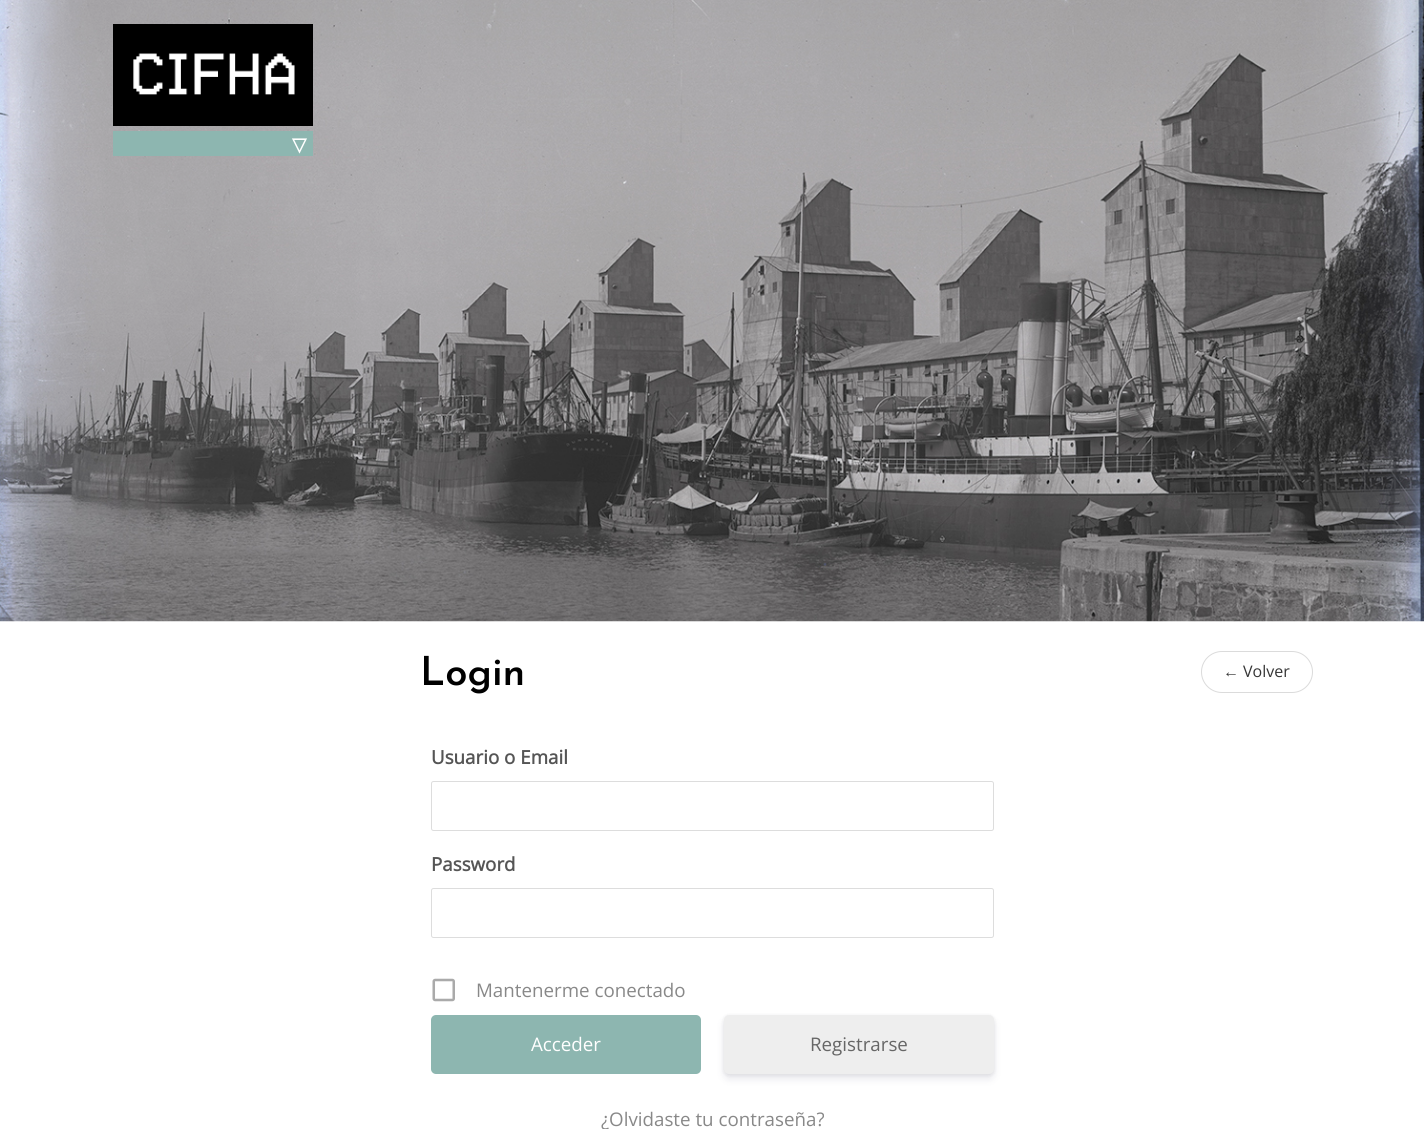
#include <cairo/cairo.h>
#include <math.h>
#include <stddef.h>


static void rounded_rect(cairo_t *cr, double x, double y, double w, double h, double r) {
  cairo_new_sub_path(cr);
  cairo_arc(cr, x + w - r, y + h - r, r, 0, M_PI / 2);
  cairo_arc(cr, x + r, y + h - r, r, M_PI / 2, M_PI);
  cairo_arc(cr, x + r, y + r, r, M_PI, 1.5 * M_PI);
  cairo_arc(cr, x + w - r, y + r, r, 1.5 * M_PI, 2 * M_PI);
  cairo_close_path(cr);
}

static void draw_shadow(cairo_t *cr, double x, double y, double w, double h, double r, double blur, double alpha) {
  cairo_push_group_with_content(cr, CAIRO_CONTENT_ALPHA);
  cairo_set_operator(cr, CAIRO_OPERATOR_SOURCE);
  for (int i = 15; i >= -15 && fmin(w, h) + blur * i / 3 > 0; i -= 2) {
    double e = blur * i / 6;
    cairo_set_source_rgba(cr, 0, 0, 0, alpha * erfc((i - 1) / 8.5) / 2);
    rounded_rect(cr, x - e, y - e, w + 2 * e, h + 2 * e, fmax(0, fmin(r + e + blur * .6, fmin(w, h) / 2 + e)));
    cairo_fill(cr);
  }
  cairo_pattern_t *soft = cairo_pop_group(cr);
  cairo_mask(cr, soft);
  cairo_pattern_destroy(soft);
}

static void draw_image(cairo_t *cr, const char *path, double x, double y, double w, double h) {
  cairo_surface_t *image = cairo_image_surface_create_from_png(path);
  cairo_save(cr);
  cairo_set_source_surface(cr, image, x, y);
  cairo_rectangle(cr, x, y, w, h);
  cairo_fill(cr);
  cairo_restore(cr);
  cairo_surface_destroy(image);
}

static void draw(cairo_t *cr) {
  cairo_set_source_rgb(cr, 1, 1, 1);
  cairo_paint(cr);
  draw_image(cr, "images/2.png", 0, 0, 1424, 622);
  cairo_set_source_rgb(cr, 0, 0, 0);
  cairo_rectangle(cr, 113, 24, 200, 102);
  cairo_fill(cr);
  draw_image(cr, "images/1.png", 133, 53, 162, 42);
  cairo_set_source_rgb(cr, 141 / 255.0, 182 / 255.0, 176 / 255.0);
  cairo_rectangle(cr, 113, 131, 200, 25);
  cairo_fill(cr);
  rounded_rect(cr, 431.5, 781.5, 562, 49, 2);
  cairo_set_source_rgb(cr, 221 / 255.0, 221 / 255.0, 221 / 255.0);
  cairo_set_line_width(cr, 1);
  cairo_stroke(cr);
  rounded_rect(cr, 431.5, 888.5, 562, 49, 2);
  cairo_stroke(cr);
  draw_image(cr, "images/3.png", 432, 978, 23, 24);
  cairo_set_source_rgb(cr, 141 / 255.0, 182 / 255.0, 176 / 255.0);
  rounded_rect(cr, 431, 1015, 270, 59, 5);
  cairo_fill(cr);
  cairo_set_source_rgb(cr, 0, 0, 0);
  draw_shadow(cr, 724, 1016, 270, 59, 5, 2, 0.08);
  cairo_set_source_rgb(cr, 50 / 255.0, 50 / 255.0, 93 / 255.0);
  draw_shadow(cr, 724, 1020, 270, 59, 5, 4, 0.11);
  cairo_set_source_rgb(cr, 238 / 255.0, 238 / 255.0, 238 / 255.0);
  rounded_rect(cr, 724, 1015, 270, 59, 5);
  cairo_fill(cr);
  rounded_rect(cr, 1201.5, 651.5, 111, 41, 20.5);
  cairo_set_source_rgb(cr, 219 / 255.0, 219 / 255.0, 219 / 255.0);
  cairo_stroke(cr);
  cairo_select_font_face(cr, "DejaVu Sans", CAIRO_FONT_SLANT_NORMAL, CAIRO_FONT_WEIGHT_BOLD);
  cairo_set_font_size(cr, 18.75);
  cairo_set_source_rgb(cr, 1, 1, 1);
  cairo_move_to(cr, 292, 151);
  cairo_show_text(cr, "▽");
  cairo_select_font_face(cr, "Josefin Sans Thin", CAIRO_FONT_SLANT_NORMAL, CAIRO_FONT_WEIGHT_NORMAL);
  cairo_set_font_size(cr, 40);
  cairo_set_source_rgb(cr, 0, 0, 0);
  cairo_move_to(cr, 420, 685);
  cairo_show_text(cr, "Login");
  cairo_select_font_face(cr, "Open Sans", CAIRO_FONT_SLANT_NORMAL, CAIRO_FONT_WEIGHT_BOLD);
  cairo_set_font_size(cr, 18.75);
  cairo_set_source_rgb(cr, 85 / 255.0, 85 / 255.0, 85 / 255.0);
  cairo_move_to(cr, 431, 764);
  cairo_show_text(cr, "Usuario o Email");
  cairo_move_to(cr, 431, 871);
  cairo_show_text(cr, "Password");
  cairo_select_font_face(cr, "Open Sans", CAIRO_FONT_SLANT_NORMAL, CAIRO_FONT_WEIGHT_NORMAL);
  cairo_set_source_rgb(cr, 136 / 255.0, 136 / 255.0, 136 / 255.0);
  cairo_move_to(cr, 476, 997);
  cairo_show_text(cr, "Mantenerme conectado");
  cairo_set_source_rgb(cr, 1, 1, 1);
  cairo_move_to(cr, 531, 1051);
  cairo_show_text(cr, "Acceder");
  cairo_set_source_rgb(cr, 102 / 255.0, 102 / 255.0, 102 / 255.0);
  cairo_move_to(cr, 810, 1051);
  cairo_show_text(cr, "Registrarse");
  cairo_set_source_rgb(cr, 136 / 255.0, 136 / 255.0, 136 / 255.0);
  cairo_move_to(cr, 601, 1126);
  cairo_show_text(cr, "¿Olvidaste tu contraseña?");
  cairo_select_font_face(cr, "Liberation Sans", CAIRO_FONT_SLANT_NORMAL, CAIRO_FONT_WEIGHT_NORMAL);
  cairo_set_font_size(cr, 16);
  cairo_set_source_rgb(cr, 54 / 255.0, 54 / 255.0, 54 / 255.0);
  cairo_move_to(cr, 1223, 677);
  cairo_show_text(cr, "←");
  cairo_select_font_face(cr, "Open Sans", CAIRO_FONT_SLANT_NORMAL, CAIRO_FONT_WEIGHT_NORMAL);
  cairo_move_to(cr, 1243, 677);
  cairo_show_text(cr, "Volver");
}

int main(void) {
  cairo_surface_t *surface = cairo_image_surface_create(CAIRO_FORMAT_RGB24, 1424, 1129);
  cairo_t *cr = cairo_create(surface);
  cairo_font_options_t *options = cairo_font_options_create();
  cairo_font_options_set_hint_metrics(options, CAIRO_HINT_METRICS_OFF);
  cairo_font_options_set_hint_style(options, CAIRO_HINT_STYLE_NONE);
  cairo_set_font_options(cr, options);
  cairo_set_miter_limit(cr, 4);
  draw(cr);
  cairo_surface_write_to_png(surface, "out.png");
  cairo_font_options_destroy(options);
  cairo_destroy(cr);
  cairo_surface_destroy(surface);
  return 0;
}
